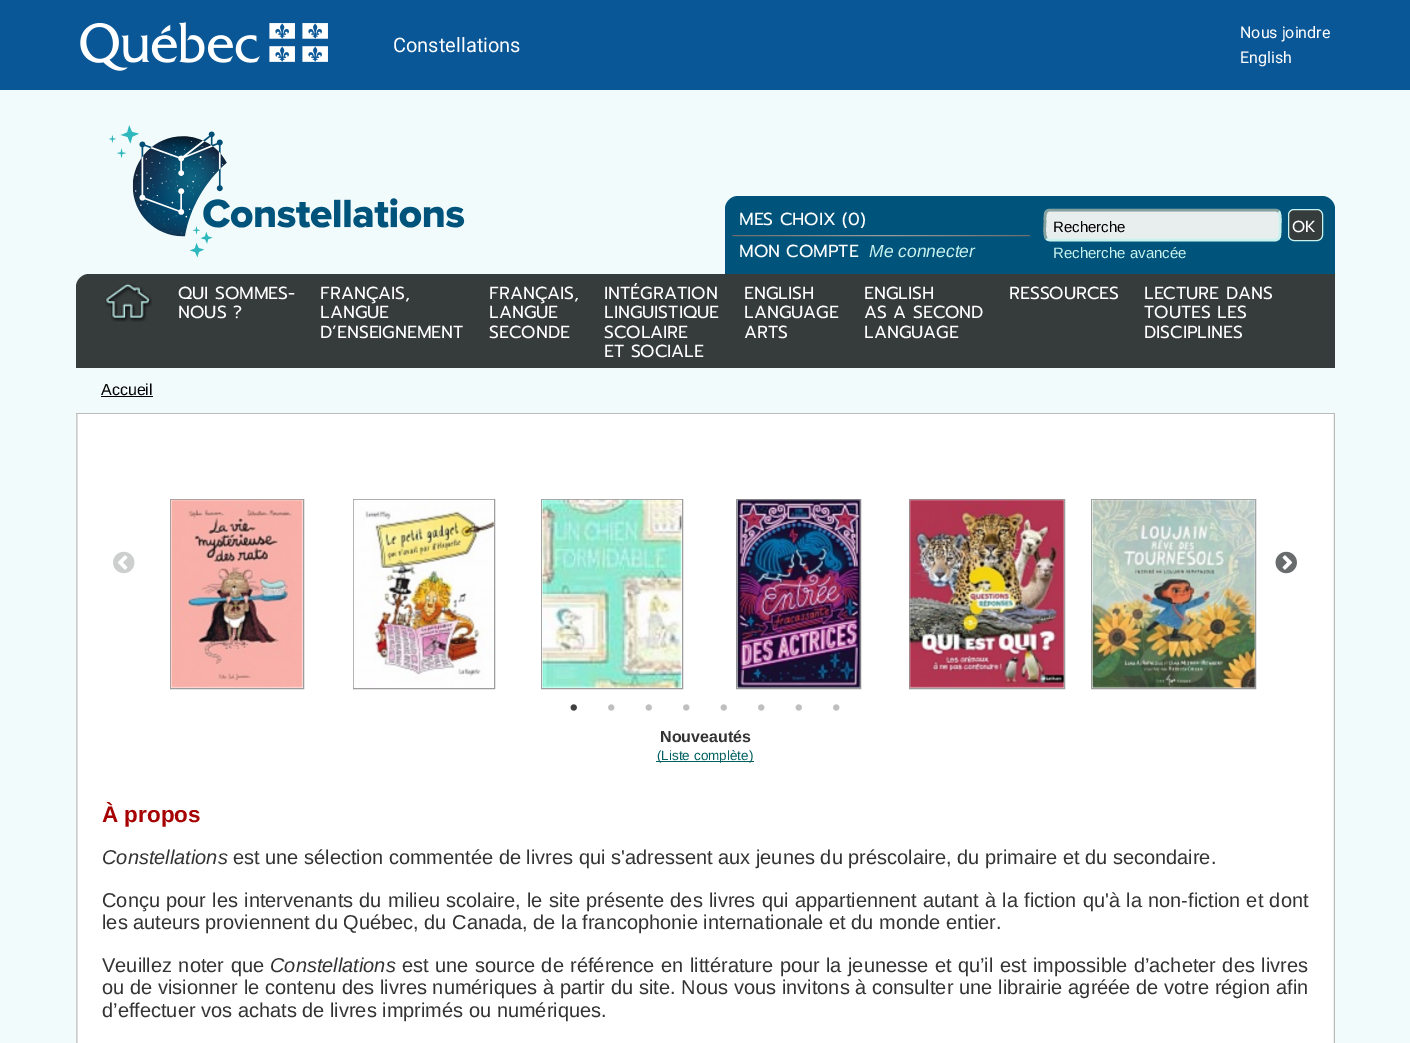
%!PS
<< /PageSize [1410 1043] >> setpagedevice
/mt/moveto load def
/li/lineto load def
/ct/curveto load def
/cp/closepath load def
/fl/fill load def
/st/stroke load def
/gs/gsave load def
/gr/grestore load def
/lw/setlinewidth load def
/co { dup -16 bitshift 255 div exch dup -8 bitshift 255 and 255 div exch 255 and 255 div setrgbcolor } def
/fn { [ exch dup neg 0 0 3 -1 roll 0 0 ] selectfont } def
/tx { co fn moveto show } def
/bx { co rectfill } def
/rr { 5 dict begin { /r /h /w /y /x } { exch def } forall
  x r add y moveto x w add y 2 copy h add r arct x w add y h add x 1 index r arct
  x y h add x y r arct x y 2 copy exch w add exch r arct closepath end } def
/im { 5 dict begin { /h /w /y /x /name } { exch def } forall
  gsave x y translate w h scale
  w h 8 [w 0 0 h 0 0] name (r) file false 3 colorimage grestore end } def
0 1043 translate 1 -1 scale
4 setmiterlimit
0 0 1410 1043 16#F2FBFB bx
0 0 1410 90 16#095797 bx
(media/1.raw) 80 22 248 49 im
(media/2.raw) 109 125 356 133 im
16#00547B co
738 196 mt 1322 196 li 1329 196 1335 202 1335 209 ct 1335 274 li 725 274 li 725 209 li 725 202 731 196 738 196 ct cp fl
(media/3.raw) 732 235 298 2 im
16#E8EEEE co
1044 209 237 32 6 rr fl
16#C7F2EE co
2.5 lw
1278.5 211.5 mt 1281.5 214.5 1280 224.5 1280 228.5 ct 1280 232.5 1281 240 1275 240 ct 1050 240 li 1048.5 240 1047.5 239.5 1046.5 238.5 ct st
16#85A19F co
1046.5 238.5 mt 1043.5 235.5 1045 225.5 1045 221.5 ct 1045 217.5 1044 210 1050 210 ct 1275 210 li 1276.5 210 1277.5 210.5 1278.5 211.5 ct st
16#363B3B co
1288.5 209.5 34 31 5.5 rr gs fl gr
16#C7F2EE co
1 lw
st
16#363B3B co
89 274 mt 1335 274 li 1335 368 li 76 368 li 76 287 li 76 280 82 274 89 274 ct cp fl
(media/4.raw) 105 283 47 39 im
76 413 1259 1 16#BBBBBB bx
101 396 52 1 16#000000 bx
gs 76 414 mt 1334 414 li 1334 1043 li 76 1043 li cp clip newpath
<< /ShadingType 2 /ColorSpace /DeviceRGB /Coords [706 414 706 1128] /Extend [true true] /Function << /FunctionType 3 /Domain [0 1] /Functions [<< /FunctionType 2 /Domain [0 1] /C0 [1 1 1] /C1 [1 1 1] /N 1 >> << /FunctionType 2 /Domain [0 1] /C0 [1 1 1] /C1 [.949 .984 1] /N 1 >>] /Bounds [.98] /Encode [0 1 0 1] >> >> shfill gr
(media/5.raw) 76 414 1259 629 im
(media/6.raw) 113 551 22 23 im
16#9D9D9D co
170.5 499.5 133 189 rectstroke
(media/7.raw) 170 499 133 189 im
353.5 499.5 141 189 rectstroke
(media/8.raw) 353 499 141 189 im
541.5 499.5 141 189 rectstroke
(media/9.raw) 541 499 141 189 im
736.5 499.5 124 189 rectstroke
(media/10.raw) 736 499 125 189 im
909.5 499.5 155 189 rectstroke
(media/11.raw) 909 499 155 189 im
1091.5 499.5 164 189 rectstroke
(media/12.raw) 1091 499 165 189 im
(media/13.raw) 1275 551 22 23 im
(media/14.raw) 570 704 7 7 im
(media/15.raw) 608 704 7 7 im
(media/16.raw) 645 704 7 7 im
(media/15.raw) 683 704 7 7 im
(media/16.raw) 720 704 7 7 im
(media/15.raw) 758 704 7 7 im
(media/16.raw) 795 704 7 7 im
(media/15.raw) 833 704 7 7 im
656 761 98 1 16#006060 bx
(Constellations) 393 52 /Roboto-Regular 20 16#FFFFFF tx
(Nous joindre) 1240 38 /Roboto-Regular 16 16#FFFFFF tx
(English) 1240 63 /Roboto-Regular 16 16#FFFFFF tx
(MES CHOIX \(0\)) 739 225 /Prompt-Regular 17.5 16#FFFFFF tx
(MON COMPTE) 739 257 /Prompt-Regular 17.5 16#FFFFFF tx
(Me connecter) 869 257 /LiberationSans-Italic 17.5 16#C7F2EE tx
(Recherche) 1053 232 /LiberationSans-Regular 15 16#000000 tx
(OK) 1292 232 /Prompt-Regular 16 16#FFFFFF tx
(Recherche avancée) 1053 258 /LiberationSans-Regular 15 16#C7F2EE tx
(QUI SOMMES-) 178 299 /Prompt-Regular 17.5 16#FFFFFF tx
(NOUS ?) 178 318 /Prompt-Regular 17.5 16#FFFFFF tx
(FRANÇAIS,) 320 299 /Prompt-Regular 17.5 16#FFFFFF tx
(LANGUE) 320 318 /Prompt-Regular 17.5 16#FFFFFF tx
(D’ENSEIGNEMENT) 320 338 /Prompt-Regular 17.5 16#FFFFFF tx
(FRANÇAIS,) 489 299 /Prompt-Regular 17.5 16#FFFFFF tx
(LANGUE) 489 318 /Prompt-Regular 17.5 16#FFFFFF tx
(SECONDE) 489 338 /Prompt-Regular 17.5 16#FFFFFF tx
(INTÉGRATION) 604 299 /Prompt-Regular 17.5 16#FFFFFF tx
(LINGUISTIQUE) 604 318 /Prompt-Regular 17.5 16#FFFFFF tx
(SCOLAIRE) 604 338 /Prompt-Regular 17.5 16#FFFFFF tx
(ET SOCIALE) 604 357 /Prompt-Regular 17.5 16#FFFFFF tx
(ENGLISH) 744 299 /Prompt-Regular 17.5 16#FFFFFF tx
(LANGUAGE) 744 318 /Prompt-Regular 17.5 16#FFFFFF tx
(ARTS) 744 338 /Prompt-Regular 17.5 16#FFFFFF tx
(ENGLISH) 864 299 /Prompt-Regular 17.5 16#FFFFFF tx
(AS A SECOND) 864 318 /Prompt-Regular 17.5 16#FFFFFF tx
(LANGUAGE) 864 338 /Prompt-Regular 17.5 16#FFFFFF tx
(RESSOURCES) 1009 299 /Prompt-Regular 17.5 16#FFFFFF tx
(LECTURE DANS) 1144 299 /Prompt-Regular 17.5 16#FFFFFF tx
(TOUTES LES) 1144 318 /Prompt-Regular 17.5 16#FFFFFF tx
(DISCIPLINES) 1144 338 /Prompt-Regular 17.5 16#FFFFFF tx
(Accueil) 101 395 /LiberationSans-Regular 16 16#000000 tx
(Nouveautés) 660 742 /LiberationSans-Bold 16 16#333333 tx
(\(Liste complète\)) 657 760 /LiberationSans-Regular 13.5 16#006060 tx
(À propos) 102 822 /LiberationSans-Bold 22.5 16#A70202 tx
(Constellations) 102 864 /LiberationSans-Italic 20 16#333333 tx
(est une sélection commentée de livres qui s'adressent aux jeunes du préscolaire, du primaire et du secondaire.) 233 864 /LiberationSans-Regular 20 16#333333 tx
102 907 mt .7 0 32 (Conçu pour les intervenants du milieu scolaire, le site présente des livres qui appartiennent autant à la fiction qu'à la non-fiction et dont) widthshow
(les auteurs proviennent du Québec, du Canada, de la francophonie internationale et du monde entier.) 102 929 /LiberationSans-Regular 20 16#333333 tx
102 972 mt .9 0 32 (Veuillez noter que) widthshow
(Constellations) 270 972 /LiberationSans-Italic 20 16#333333 tx
/LiberationSans-Regular 20 fn
402 972 mt .9 0 32 (est une source de référence en littérature pour la jeunesse et qu’il est impossible d’acheter des livres) widthshow
102 994 mt .2 0 32 (ou de visionner le contenu des livres numériques à partir du site. Nous vous invitons à consulter une librairie agréée de votre région afin) widthshow
(d’effectuer vos achats de livres imprimés ou numériques.) 102 1017 /LiberationSans-Regular 20 16#333333 tx
showpage
